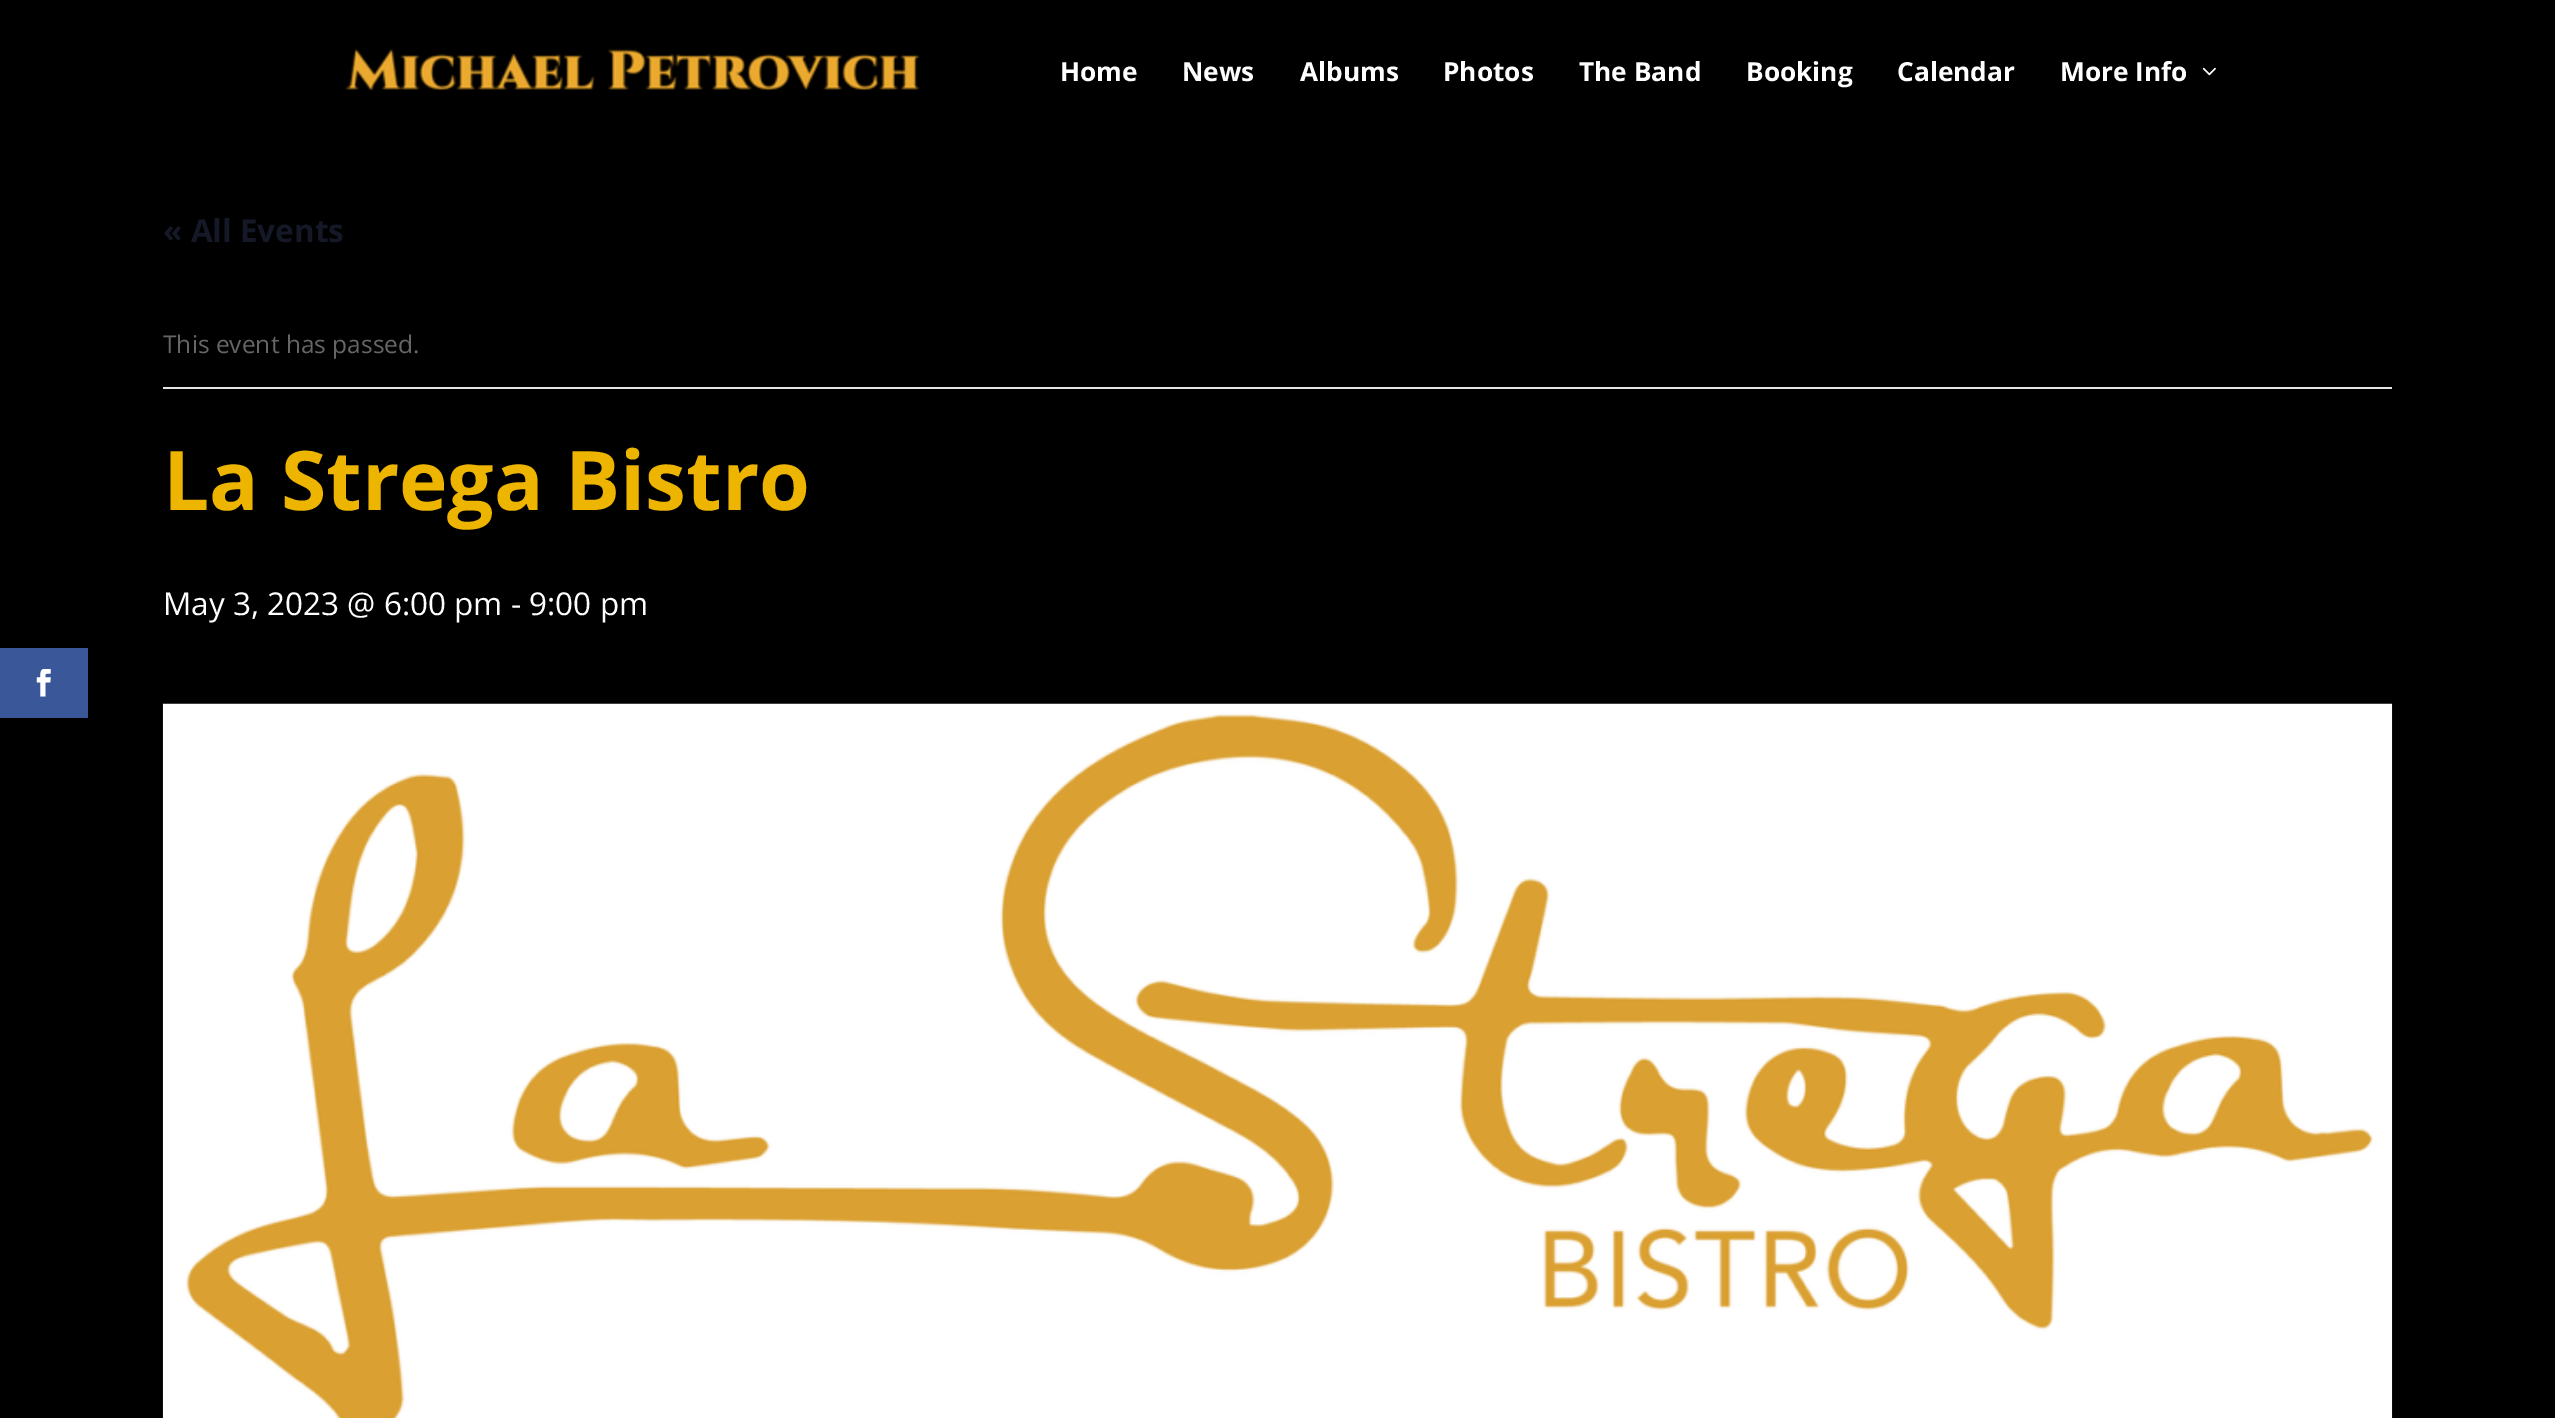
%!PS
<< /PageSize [2555 1418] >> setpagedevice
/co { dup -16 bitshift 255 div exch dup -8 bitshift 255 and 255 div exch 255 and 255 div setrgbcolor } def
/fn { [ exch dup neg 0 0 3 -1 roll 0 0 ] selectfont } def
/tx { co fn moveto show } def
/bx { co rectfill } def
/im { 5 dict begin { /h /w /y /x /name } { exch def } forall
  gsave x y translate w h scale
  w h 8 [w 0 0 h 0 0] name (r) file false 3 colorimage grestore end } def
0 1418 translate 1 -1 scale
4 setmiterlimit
0 0 2555 1418 16#000000 bx
(media/1.raw) 345 48 575 43 im
(media/2.raw) 2202 67 14 9 im
163 387 2229 2 16#E4E4E4 bx
(media/3.raw) 162 703 2231 715 im
0 648 88 70 16#3A579A bx
(media/4.raw) 36 669 15 28 im
(Home) 1060 81 /OpenSans-Bold 26.25 16#FFFFFF tx
(News) 1182 81 /OpenSans-Bold 26.25 16#FFFFFF tx
(Albums) 1300 81 /OpenSans-Bold 26.25 16#FFFFFF tx
(Photos) 1443 81 /OpenSans-Bold 26.25 16#FFFFFF tx
(The Band) 1579 81 /OpenSans-Bold 26.25 16#FFFFFF tx
(Booking) 1746 81 /OpenSans-Bold 26.25 16#FFFFFF tx
(Calendar) 1897 81 /OpenSans-Bold 26.25 16#FFFFFF tx
(More Info) 2060 81 /OpenSans-Bold 26.25 16#FFFFFF tx
(« All Events) 163 242 /OpenSans-Bold 31.5 16#141827 tx
(This event has passed.) 163 353 /OpenSans-Regular 24.5 16#666666 tx
(La Strega Bistro) 163 510 /OpenSans-Bold 82.25 16#EDB500 tx
(May 3, 2023 @ 6:00 pm - 9:00 pm) 163 615 /OpenSans-Regular 31.5 16#FFFFFF tx
showpage
